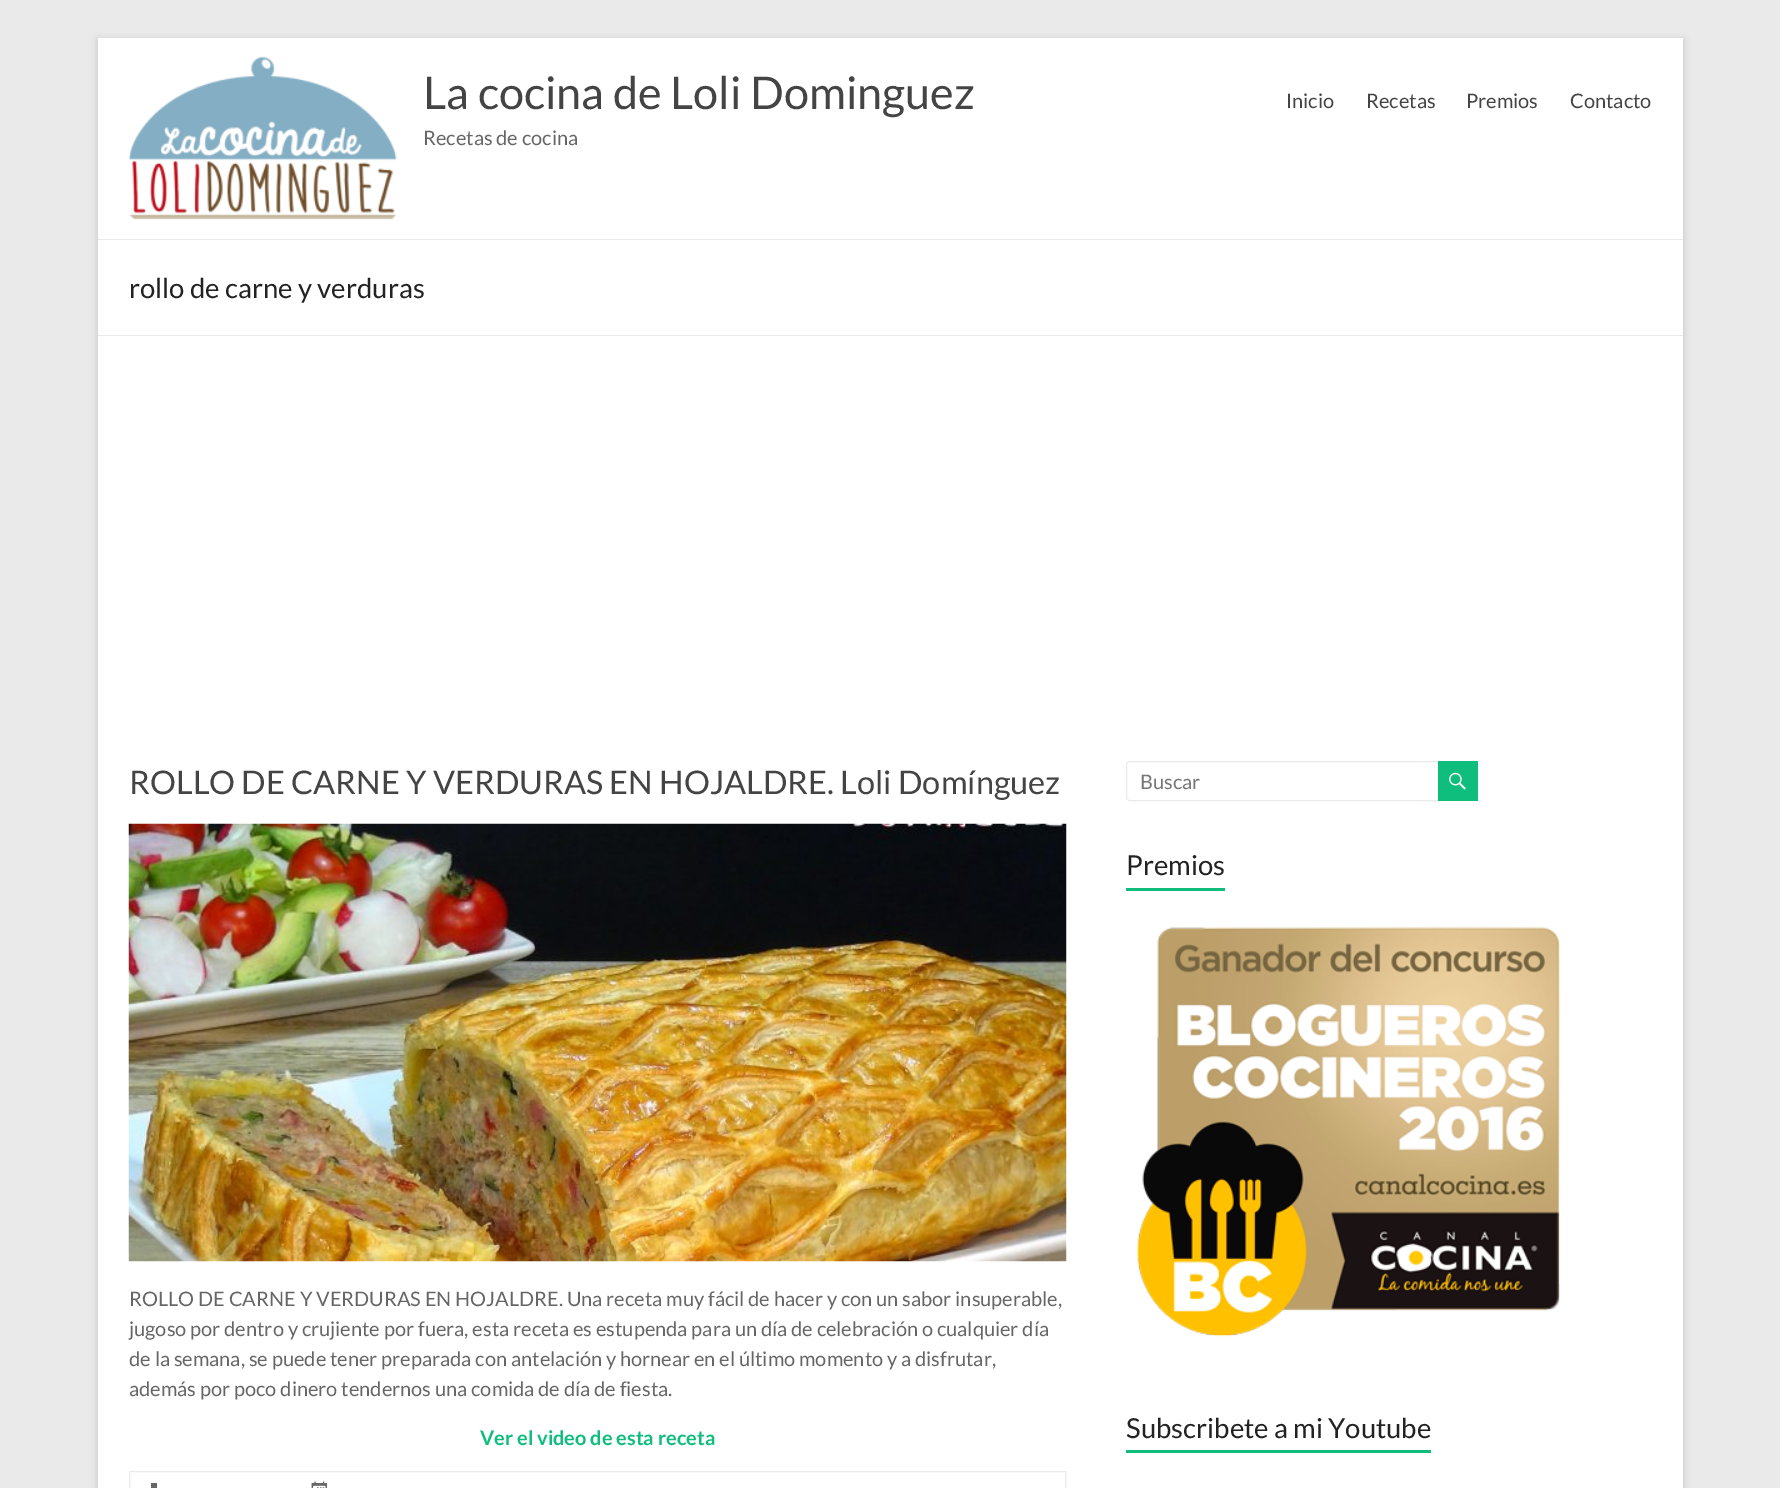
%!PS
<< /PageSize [1780 1488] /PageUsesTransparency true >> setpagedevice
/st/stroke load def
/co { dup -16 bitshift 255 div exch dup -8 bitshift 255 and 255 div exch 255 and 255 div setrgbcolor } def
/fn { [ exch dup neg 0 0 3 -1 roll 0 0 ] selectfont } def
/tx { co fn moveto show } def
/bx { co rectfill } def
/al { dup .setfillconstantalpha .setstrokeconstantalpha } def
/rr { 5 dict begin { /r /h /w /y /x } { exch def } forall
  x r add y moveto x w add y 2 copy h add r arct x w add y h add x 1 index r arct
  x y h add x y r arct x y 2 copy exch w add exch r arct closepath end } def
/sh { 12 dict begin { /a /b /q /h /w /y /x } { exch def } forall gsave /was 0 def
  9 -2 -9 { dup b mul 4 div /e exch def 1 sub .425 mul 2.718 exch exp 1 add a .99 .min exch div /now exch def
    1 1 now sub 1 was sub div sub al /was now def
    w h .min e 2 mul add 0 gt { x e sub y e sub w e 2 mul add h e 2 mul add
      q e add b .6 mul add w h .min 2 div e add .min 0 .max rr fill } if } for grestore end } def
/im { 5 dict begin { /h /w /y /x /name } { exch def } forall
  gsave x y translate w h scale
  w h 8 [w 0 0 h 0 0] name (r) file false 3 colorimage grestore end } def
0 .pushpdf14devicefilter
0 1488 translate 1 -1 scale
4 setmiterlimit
0 0 1780 1488 16#EAEAEA bx
16#646464 co
98 40 1585 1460 0 4 .3 sh
98 38 1585 1450 16#FFFFFF bx
98 239 1585 1 16#EAEAEA bx
(media/1.raw) 128 56 269 164 im
98 335 1585 1 16#EAEAEA bx
(media/2.raw) 128 823 939 439 im
129.5 1471.5 936 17 rectstroke
151 1483 6 5 16#666666 bx
(media/3.raw) 311 1481 17 7 im
16#EAEAEA co
1126.5 761.5 314 39 3.5 rr st
1438 761 40 40 16#0FBE7C bx
(media/4.raw) 1449 772 17 18 im
1126 888 99 3 16#0FBE7C bx
(media/5.raw) 1137 926 424 411 im
1126 1450 305 3 16#0FBE7C bx
(La cocina de Loli Dominguez) 423 109 /Lato-Regular 45 16#444444 tx
(Recetas de cocina) 423 145 /Lato-Regular 20 16#666666 tx
(Inicio) 1286 108 /Lato-Regular 20 16#444444 tx
(Recetas) 1366 108 /Lato-Regular 20 16#444444 tx
(Premios) 1466 108 /Lato-Regular 20 16#444444 tx
(Contacto) 1570 108 /Lato-Regular 20 16#444444 tx
(rollo de carne y verduras) 129 298 /Lato-Regular 27.5 16#222222 tx
(ROLLO DE CARNE Y VERDURAS EN HOJALDRE. Loli Domínguez) 129 794 /Lato-Regular 32.5 16#444444 tx
(ROLLO DE CARNE Y VERDURAS EN HOJALDRE. Una receta muy fácil de hacer y con un sabor insuperable,) 129 1306 /Lato-Regular 20 16#666666 tx
(jugoso por dentro y crujiente por fuera, esta receta es estupenda para un día de celebración o cualquier día) 129 1336 /Lato-Regular 20 16#666666 tx
(de la semana, se puede tener preparada con antelación y hornear en el último momento y a disfrutar,) 129 1366 /Lato-Regular 20 16#666666 tx
(además por poco dinero tendernos una comida de día de fiesta.) 129 1396 /Lato-Regular 20 16#666666 tx
(Ver el video de esta receta) 480 1445 /Lato-Bold 20 16#0FBE7C tx
(Buscar) 1140 789 /Lato-Regular 20 16#757575 tx
(Premios) 1126 875 /Lato-Regular 27.5 16#222222 tx
(Subscribete a mi Youtube) 1126 1438 /Lato-Regular 27.5 16#222222 tx
.poppdf14devicefilter showpage
